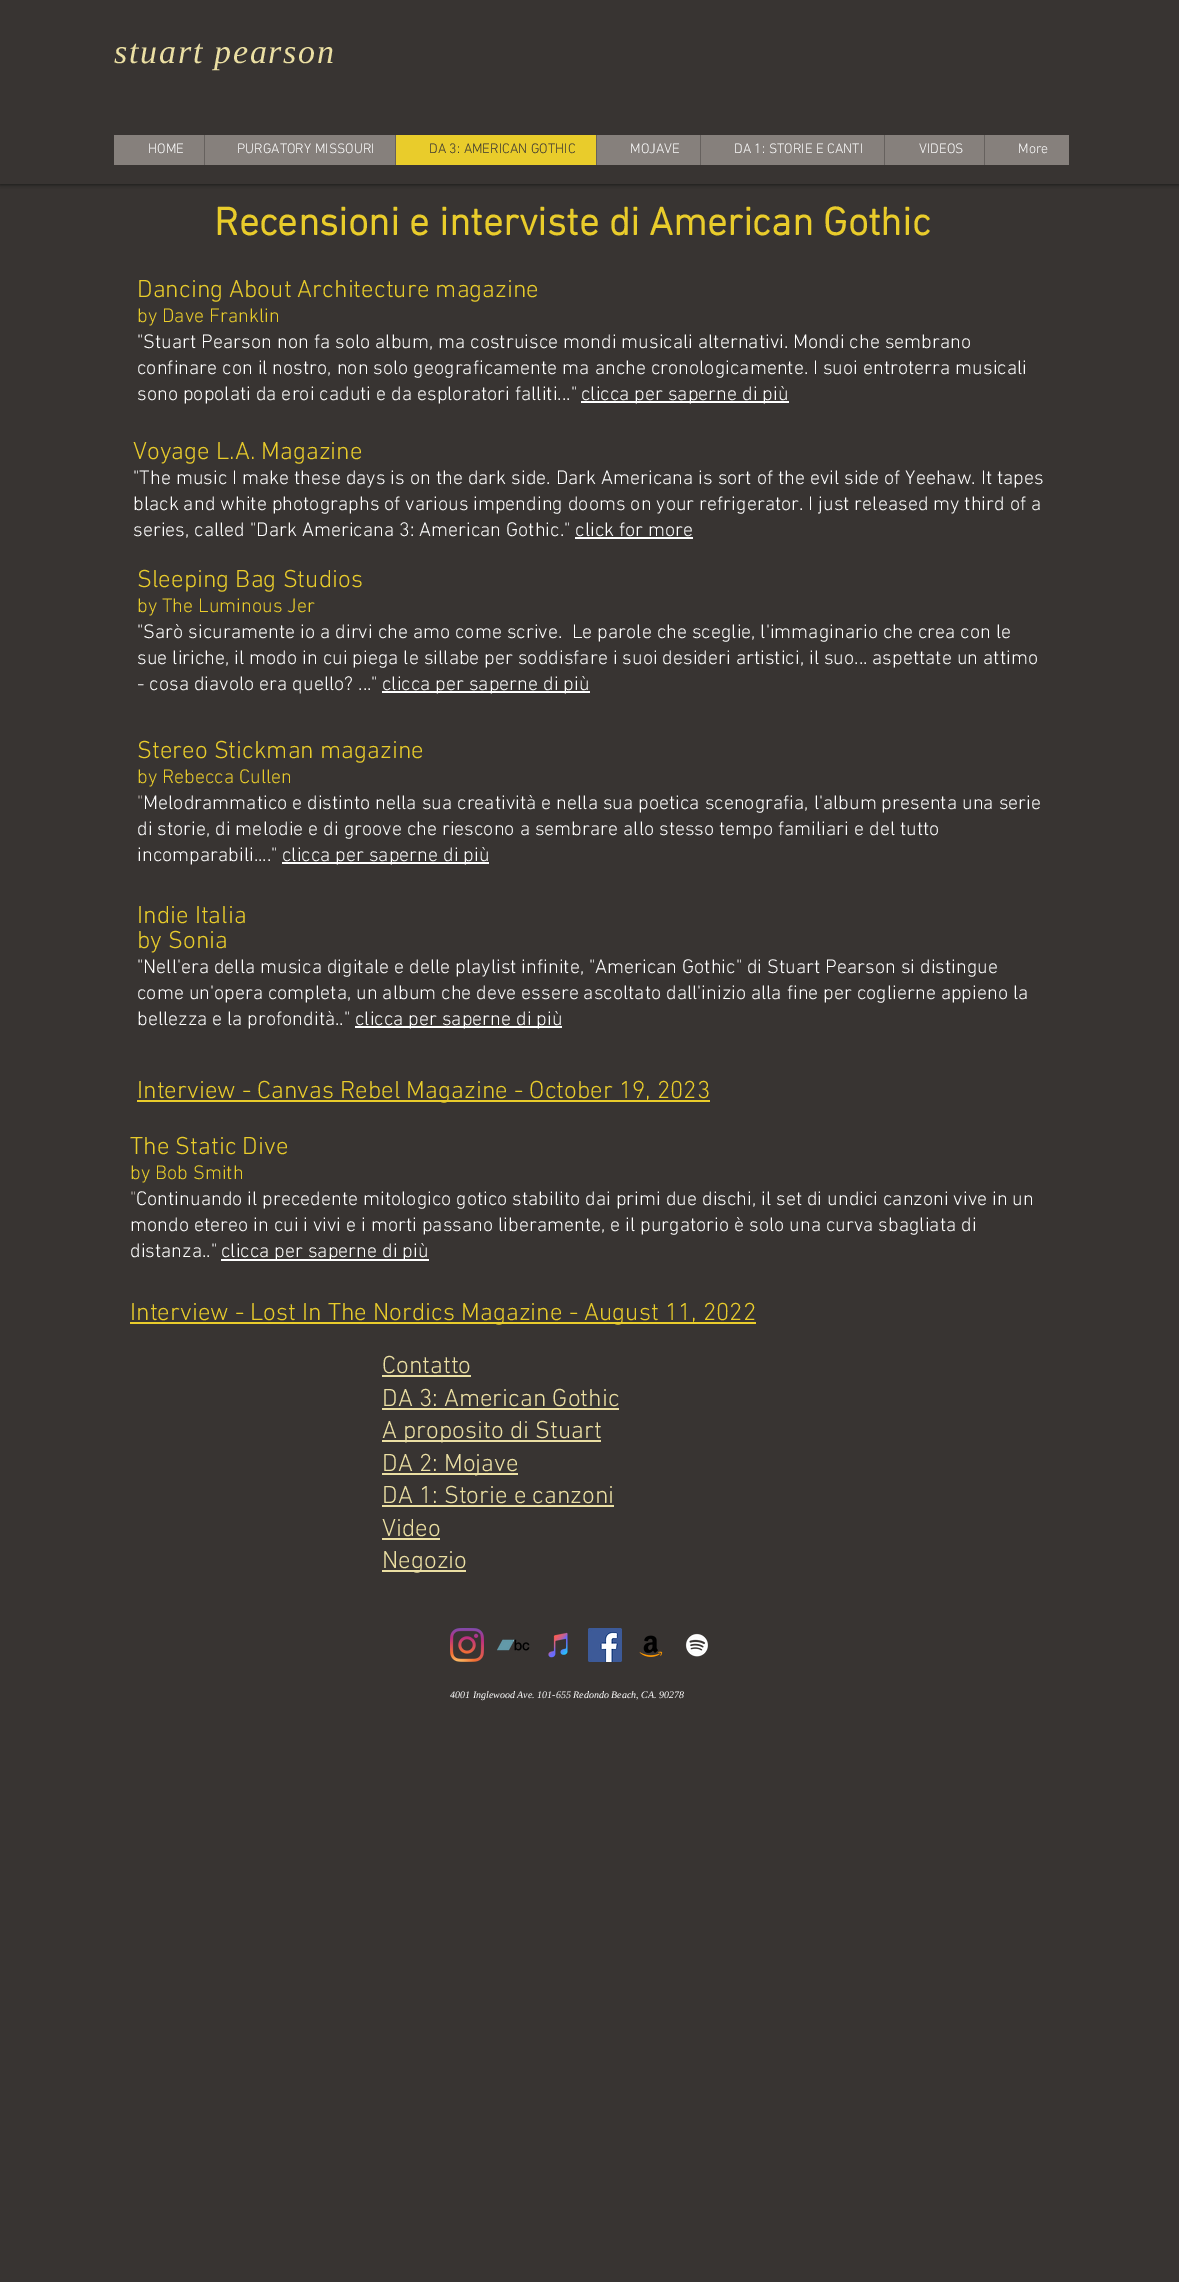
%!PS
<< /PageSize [1179 2282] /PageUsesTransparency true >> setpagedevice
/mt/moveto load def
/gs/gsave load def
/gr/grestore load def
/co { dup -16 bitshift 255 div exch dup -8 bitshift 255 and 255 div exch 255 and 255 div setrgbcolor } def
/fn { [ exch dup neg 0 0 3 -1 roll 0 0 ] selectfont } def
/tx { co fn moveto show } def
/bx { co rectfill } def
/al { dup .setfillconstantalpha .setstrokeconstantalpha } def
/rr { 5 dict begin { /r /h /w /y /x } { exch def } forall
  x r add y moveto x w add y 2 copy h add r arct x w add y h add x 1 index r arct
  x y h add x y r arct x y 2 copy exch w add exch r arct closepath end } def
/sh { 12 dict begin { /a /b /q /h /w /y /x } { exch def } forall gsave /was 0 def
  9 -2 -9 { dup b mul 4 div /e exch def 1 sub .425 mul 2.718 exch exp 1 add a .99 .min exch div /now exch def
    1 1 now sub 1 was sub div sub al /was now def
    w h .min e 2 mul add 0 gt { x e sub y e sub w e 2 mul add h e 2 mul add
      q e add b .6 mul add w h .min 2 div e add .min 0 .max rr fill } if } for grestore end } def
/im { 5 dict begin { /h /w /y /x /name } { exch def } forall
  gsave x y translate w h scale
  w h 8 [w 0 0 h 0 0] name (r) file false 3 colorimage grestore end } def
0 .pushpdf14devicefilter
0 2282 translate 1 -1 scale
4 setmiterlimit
0 0 1179 2282 16#383432 bx
gs
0 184 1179 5 rectclip
16#000000 co
0 0 1179 184 0 2.5 .7 sh
gr
114 135 955 30 16#86807C bx
204 135 1 30 16#66615E bx
396 135 200 30 16#E9CC2B bx
395 135 1 30 16#66615E bx
596 135 1 30 16#66615E bx
700 135 1 30 16#66615E bx
884 135 1 30 16#66615E bx
984 135 1 30 16#66615E bx
581 401 208 2 16#FFFFFF bx
575 537 118 2 16#FFFFFF bx
382 691 208 2 16#FFFFFF bx
282 862 207 2 16#FFFFFF bx
355 1026 207 2 16#FFFFFF bx
137 1100 573 2 16#E9CC2B bx
221 1259 208 2 16#FFFFFF bx
130 1322 626 2 16#E9CC2B bx
382 1375 89 2 16#EBDFA3 bx
382 1408 237 2 16#EBDFA3 bx
382 1440 219 2 16#EBDFA3 bx
382 1473 136 2 16#EBDFA3 bx
382 1505 232 2 16#EBDFA3 bx
382 1538 58 2 16#EBDFA3 bx
382 1570 84 2 16#EBDFA3 bx
(media/1.raw) 450 1628 34 34 im
(media/2.raw) 497 1639 33 12 im
(media/3.raw) 548 1632 20 26 im
(media/4.raw) 588 1628 34 34 im
(media/5.raw) 639 1635 24 22 im
(media/6.raw) 685 1633 23 24 im
/LiberationSerif-Italic 34 fn
114 63 mt 1.75 0 (stuart pearson) ashow
(HOME) 148 153 /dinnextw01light-Light 14 16#FFFFFF tx
(PURGATORY MISSOURI) 237 153 /dinnextw01light-Light 14 16#FFFFFF tx
(DA 3: AMERICAN GOTHIC) 429 153 /dinnextw01light-Light 14 16#383432 tx
(MOJAVE) 630 153 /dinnextw01light-Light 14 16#FFFFFF tx
(DA 1: STORIE E CANTI) 734 153 /dinnextw01light-Light 14 16#FFFFFF tx
(VIDEOS) 919 153 /dinnextw01light-Light 14 16#FFFFFF tx
(More) 1018 153 /dinnextw01light-Light 14 16#FFFFFF tx
(Recensioni e interviste di American Gothic) 214 235 /dinnextw01light-Bold 40 16#E9CC2B tx
(Dancing About Architecture magazine) 137 297 /dinnextw01light-Light 25 16#E9CC2B tx
(by Dave Franklin) 137 322 /dinnextw01light-Light 20 16#E9CC2B tx
("Stuart Pearson non fa solo album, ma costruisce mondi musicali alternativi. Mondi che sembrano) 137 348 /dinnextw01light-Light 20 16#FFFFFF tx
(confinare con il nostro, non solo geograficamente ma anche cronologicamente. I suoi entroterra musicali) 137 374 /dinnextw01light-Light 20 16#FFFFFF tx
(sono popolati da eroi caduti e da esploratori falliti...") 137 400 /dinnextw01light-Light 20 16#FFFFFF tx
(clicca per saperne di più) 581 400 /dinnextw01light-Light 20 16#FFFFFF tx
(Voyage L.A. Magazine) 133 459 /dinnextw01light-Light 25 16#E9CC2B tx
("The music I make these days is on the dark side. Dark Americana is sort of the evil side of Yeehaw. It tapes) 133 484 /dinnextw01light-Light 20 16#FFFFFF tx
(black and white photographs of various impending dooms on your refrigerator. I just released my third of a) 133 510 /dinnextw01light-Light 20 16#FFFFFF tx
(series, called "Dark Americana 3: American Gothic." click for more) 133 536 /dinnextw01light-Light 20 16#FFFFFF tx
(Sleeping Bag Studios) 137 587 /dinnextw01light-Light 25 16#E9CC2B tx
(by The Luminous Jer) 137 612 /dinnextw01light-Light 20 16#E9CC2B tx
("Sarò sicuramente io a dirvi che amo come scrive.  Le parole che sceglie, l'immaginario che crea con le) 137 638 /dinnextw01light-Light 20 16#FFFFFF tx
(sue liriche, il modo in cui piega le sillabe per soddisfare i suoi desideri artistici, il suo... aspettate un attimo) 137 664 /dinnextw01light-Light 20 16#FFFFFF tx
(- cosa diavolo era quello? ...") 137 690 /dinnextw01light-Light 20 16#FFFFFF tx
(clicca per saperne di più) 382 690 /dinnextw01light-Light 20 16#FFFFFF tx
(Stereo Stickman magazine) 137 758 /dinnextw01light-Light 25 16#E9CC2B tx
(by Rebecca Cullen) 137 783 /dinnextw01light-Light 20 16#E9CC2B tx
(") 137 809 /dinnextw01light-Light 20 16#BEB6B0 tx
(Melodrammatico e distinto nella sua creatività e nella sua poetica scenografia, l'album presenta una serie) 143 809 /dinnextw01light-Light 20 16#FFFFFF tx
(di storie, di melodie e di groove che riescono a sembrare allo stesso tempo familiari e del tutto) 137 835 /dinnextw01light-Light 20 16#FFFFFF tx
(incomparabili....") 137 861 /dinnextw01light-Light 20 16#FFFFFF tx
(clicca per saperne di più) 282 861 /dinnextw01light-Light 20 16#FFFFFF tx
(Indie Italia) 137 923 /dinnextw01light-Light 25 16#E9CC2B tx
(by Sonia) 137 948 /dinnextw01light-Light 25 16#E9CC2B tx
("Nell'era della musica digitale e delle playlist infinite, "American Gothic" di Stuart Pearson si distingue) 137 973 /dinnextw01light-Light 20 16#FFFFFF tx
(come un'opera completa, un album che deve essere ascoltato dall'inizio alla fine per coglierne appieno la) 137 999 /dinnextw01light-Light 20 16#FFFFFF tx
(bellezza e la profondità..") 137 1025 /dinnextw01light-Light 20 16#FFFFFF tx
(clicca per saperne di più) 355 1025 /dinnextw01light-Light 20 16#FFFFFF tx
(Interview - Canvas Rebel Magazine - October 19, 2023) 137 1098 /dinnextw01light-Light 25 16#E9CC2B tx
(The Static Dive) 130 1154 /dinnextw01light-Light 25 16#E9CC2B tx
(by Bob Smith) 130 1179 /dinnextw01light-Light 20 16#E9CC2B tx
(") 130 1205 /dinnextw01light-Light 20 16#BEB6B0 tx
(Continuando il precedente mitologico gotico stabilito dai primi due dischi, il set di undici canzoni vive in un) 136 1205 /dinnextw01light-Light 20 16#FFFFFF tx
(mondo etereo in cui i vivi e i morti passano liberamente, e il purgatorio è solo una curva sbagliata di) 130 1231 /dinnextw01light-Light 20 16#FFFFFF tx
(distanza..") 130 1257 /dinnextw01light-Light 20 16#FFFFFF tx
(clicca per saperne di più) 221 1257 /dinnextw01light-Light 20 16#FFFFFF tx
(Interview - Lost In The Nordics Magazine - August 11, 2022) 130 1320 /dinnextw01light-Light 25 16#E9CC2B tx
(Contatto) 382 1373 /dinnextw01light-Light 25 16#EBDFA3 tx
(DA 3: American Gothic) 382 1406 /dinnextw01light-Light 25 16#EBDFA3 tx
(A proposito di Stuart) 382 1438 /dinnextw01light-Light 25 16#EBDFA3 tx
(DA 2: Mojave) 382 1471 /dinnextw01light-Light 25 16#EBDFA3 tx
(DA 1: Storie e canzoni) 382 1503 /dinnextw01light-Light 25 16#EBDFA3 tx
(Video) 382 1536 /dinnextw01light-Light 25 16#EBDFA3 tx
(Negozio) 382 1568 /dinnextw01light-Light 25 16#EBDFA3 tx
(4001 Inglewood Ave. 101-655 Redondo Beach, CA. 90278) 450 1698 /LiberationSerif-Italic 10 16#FFFFFF tx
.poppdf14devicefilter showpage
